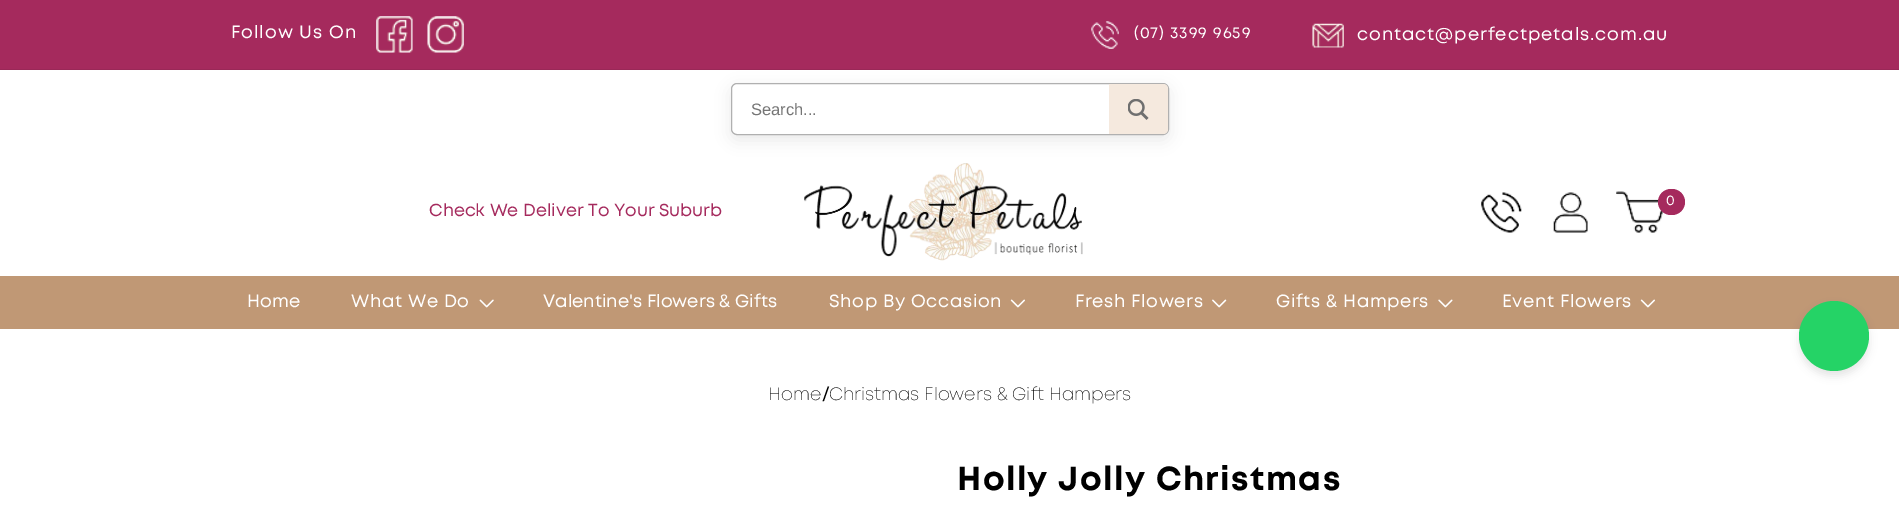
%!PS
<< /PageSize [1899 514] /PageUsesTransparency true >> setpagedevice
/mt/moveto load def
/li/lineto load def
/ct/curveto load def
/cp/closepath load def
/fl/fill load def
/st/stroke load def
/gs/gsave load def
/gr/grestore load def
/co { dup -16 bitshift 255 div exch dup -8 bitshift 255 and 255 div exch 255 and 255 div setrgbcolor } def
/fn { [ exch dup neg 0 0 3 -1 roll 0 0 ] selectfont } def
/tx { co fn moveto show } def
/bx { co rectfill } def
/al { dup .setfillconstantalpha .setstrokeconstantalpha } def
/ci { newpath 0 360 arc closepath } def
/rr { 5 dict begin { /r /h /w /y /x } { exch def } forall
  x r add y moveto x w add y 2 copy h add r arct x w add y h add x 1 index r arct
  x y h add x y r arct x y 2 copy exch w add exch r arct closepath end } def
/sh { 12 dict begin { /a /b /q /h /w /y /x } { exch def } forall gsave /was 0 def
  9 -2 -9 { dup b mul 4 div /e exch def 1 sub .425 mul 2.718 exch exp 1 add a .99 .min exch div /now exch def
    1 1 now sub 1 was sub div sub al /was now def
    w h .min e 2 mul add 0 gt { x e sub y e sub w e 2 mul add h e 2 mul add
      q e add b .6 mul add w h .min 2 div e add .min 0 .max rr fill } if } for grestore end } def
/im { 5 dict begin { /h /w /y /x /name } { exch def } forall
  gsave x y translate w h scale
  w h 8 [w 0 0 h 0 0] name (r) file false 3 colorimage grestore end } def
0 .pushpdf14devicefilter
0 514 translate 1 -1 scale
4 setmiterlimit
0 0 1899 514 16#FFFFFF bx
(media/6.raw) 804 163 279 98 im
16#000000 co
731 88 438 52 6 7.5 .08 sh
0 0 1899 69 16#A52A5D bx
0 69 1899 1 16#992857 bx
(media/1.raw) 376 16 37 37 im
(media/2.raw) 427 16 37 37 im
(media/3.raw) 1091 21 28 28 im
(media/4.raw) 1312 23 32 25 im
16#FFFFFF co
731.5 83.5 437 51 5.5 rr gs fl gr
16#B0B0B0 co
st
16#F5E9DE co
1109 84 mt 1163 84 li 1166 84 1168 86 1168 89 ct 1168 129 li 1168 132 1166 134 1163 134 ct 1109 134 li cp fl
(media/5.raw) 1128 99 21 21 im
(media/7.raw) 1481 192 41 41 im
(media/8.raw) 1553 192 35 41 im
(media/9.raw) 1616 191 48 42 im
16#A52A5D co
1658 189 27 26 13 rr fl
0 276 1899 53 16#C09875 bx
(media/10.raw) 479 299 15 9 im
(media/11.raw) 1010 299 15 9 im
(media/12.raw) 1212 299 15 9 im
(media/13.raw) 1438 299 15 9 im
(media/11.raw) 1640 299 15 9 im
16#000000 co
1799 306 70 70 35 4 .1 sh
16#25D366 co
1834 336 35 ci fl
/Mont-Regular 17.8 fn
16#FFFFFF co
231 38 mt .95 0 (Follow Us On) ashow
/Mont-Regular 15.75 fn
1134 38 mt .95 0 (\(07\) 3399 9659) ashow
/Mont-Regular 17.8 fn
1357 40 mt .95 0 (contact@perfectpetals.com.au) ashow
(Search...) 751 115 /LiberationSans-Regular 16.5 16#757575 tx
/Mont-Regular 14 fn
16#FFFFFF co
1666 205 mt .95 0 (0) ashow
(Check We Deliver To Your Suburb) 429 216 /Mont-Regular 17.4 16#A52A5D tx
(Home) 247 307 /Mont-Regular 17.8 16#FFFFFF tx
351 307 mt .6 0 (What We Do) ashow
(Valentine's Flowers & Gifts) 543 307 /Mont-Regular 17.8 16#FFFFFF tx
829 307 mt .6 0 (Shop By Occasion) ashow
1075 307 mt .6 0 (Fresh Flowers) ashow
1276 307 mt .6 0 (Gifts & Hampers) ashow
1502 307 mt .6 0 (Event Flowers) ashow
(Home) 768 400 /Mont-ExtraLight 17.8 16#000000 tx
(/) 822 400 /Mont-Regular 17.8 16#000000 tx
(Christmas Flowers & Gift Hampers) 829 400 /Mont-ExtraLight 17.8 16#000000 tx
/Mont-Bold 33.25 fn
957 490 mt 1.4 0 (Holly Jolly Christmas) ashow
.poppdf14devicefilter showpage
